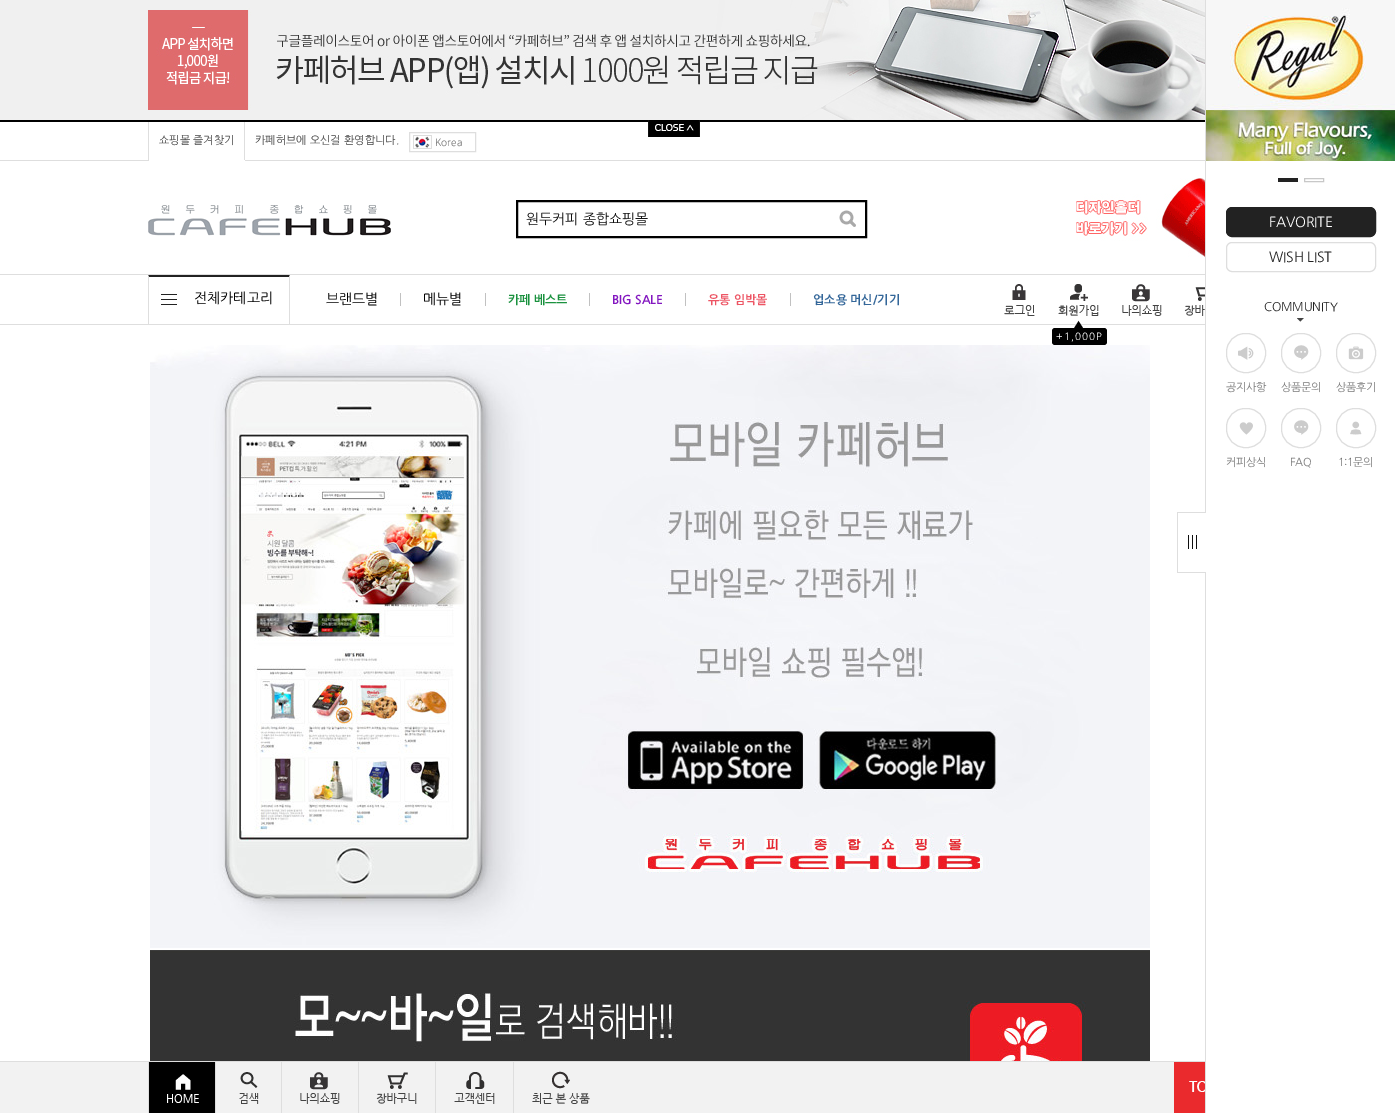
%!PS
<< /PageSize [1395 1113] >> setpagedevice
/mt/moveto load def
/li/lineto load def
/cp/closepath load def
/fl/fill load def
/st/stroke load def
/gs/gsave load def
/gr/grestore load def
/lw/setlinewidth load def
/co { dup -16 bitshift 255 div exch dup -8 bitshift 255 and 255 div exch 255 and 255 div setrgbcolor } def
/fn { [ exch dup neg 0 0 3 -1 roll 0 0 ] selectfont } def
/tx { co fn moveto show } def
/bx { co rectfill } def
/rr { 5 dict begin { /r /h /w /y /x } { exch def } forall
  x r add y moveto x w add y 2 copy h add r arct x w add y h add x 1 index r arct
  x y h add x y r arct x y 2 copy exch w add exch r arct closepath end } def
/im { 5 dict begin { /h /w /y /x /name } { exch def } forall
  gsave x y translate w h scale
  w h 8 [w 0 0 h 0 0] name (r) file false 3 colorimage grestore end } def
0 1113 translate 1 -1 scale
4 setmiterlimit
0 0 1395 1113 16#FFFFFF bx
0 0 148 120 16#F0F0F0 bx
(media/1.raw) 148 0 1057 120 im
0 120 1205 2 16#000000 bx
(media/2.raw) 648 120 52 17 im
0 160 1205 1 16#DEDEDE bx
244 122 1 39 16#DEDEDE bx
148 160 97 1 16#FFFFFF bx
148 122 1 39 16#DEDEDE bx
409.5 132.5 66 19 rectstroke
(media/3.raw) 413 135 19 14 im
(media/4.raw) 148 205 243 31 im
16#000000 co
2 lw
517 201 349 36 rectstroke
(media/5.raw) 839 210 17 17 im
(media/6.raw) 1076 178 129 80 im
0 274 1205 1 16#DEDEDE bx
0 324 1205 1 16#DEDEDE bx
16#222222 co
148 275 mt 290 275 li 289 277 li 149 277 li cp fl
16#DEDEDE co
290 275 mt 290 324 li 289 324 li 289 277 li cp fl
148 324 mt 148 275 li 149 277 li 149 324 li cp fl
161 294 16 1 16#222222 bx
161 299 16 1 16#222222 bx
161 304 16 1 16#222222 bx
400 293 1 13 16#C1C1C1 bx
485 293 1 13 16#C1C1C1 bx
589 293 1 13 16#C1C1C1 bx
685 293 1 13 16#C1C1C1 bx
790 293 1 13 16#C1C1C1 bx
(media/7.raw) 1004 284 31 32 im
(media/8.raw) 1122 284 40 32 im
(media/9.raw) 1184 284 21 32 im
(media/10.raw) 1058 284 41 32 im
16#000000 co
1052 328 55 17 3 rr fl
(media/11.raw) 150 345 1000 716 im
1205 0 1 1113 16#DEDEDE bx
(media/12.raw) 1206 0 189 161 im
1278 178 20 4 16#222222 bx
16#C8C8C8 co
1 lw
1304.5 178.5 19 3 rectstroke
16#222222 co
1226.5 207.5 149 29 5.5 rr gs fl gr
st
16#DEDEDE co
1226.5 242.5 149 29 5.5 rr st
(media/13.raw) 1297 318 7 4 im
1226.5 333.5 39 39 18.5 rr st
(media/14.raw) 1238 346 16 14 im
1281.5 333.5 39 39 18.5 rr st
(media/15.raw) 1294 345 15 15 im
1336.5 333.5 39 39 18.5 rr st
(media/16.raw) 1348 346 16 14 im
1226.5 408.5 39 39 18.5 rr st
(media/17.raw) 1239 422 14 13 im
1281.5 408.5 39 39 18.5 rr st
(media/15.raw) 1294 420 15 15 im
1336.5 408.5 39 39 18.5 rr st
(media/18.raw) 1350 421 12 14 im
1205 513 1 59 16#FFFFFF bx
(media/19.raw) 1188 535 9 14 im
1177 512 29 1 16#DEDEDE bx
1177 572 29 1 16#DEDEDE bx
1177 512 1 61 16#DEDEDE bx
0 1062 1174 51 16#F2F2F2 bx
0 1061 1205 1 16#DEDEDE bx
(media/20.raw) 148 1062 68 51 im
(media/21.raw) 239 1062 43 51 im
(media/22.raw) 300 1062 59 51 im
(media/23.raw) 376 1062 60 51 im
(media/24.raw) 454 1062 60 51 im
(media/25.raw) 532 1071 58 33 im
(media/26.raw) 1174 1062 31 51 im
(쇼핑몰 즐겨찾기) 159 144 /NanumGothic-Regular 11 16#444444 tx
(카페허브에 오신걸 환영합니다.) 255 144 /NanumGothic-Regular 11 16#444444 tx
(Korea) 435 146 /NanumGothic-Regular 10 16#777777 tx
(원두커피 종합쇼핑몰) 526 224 /NanumGothic-Regular 14 16#111111 tx
(전체카테고리) 194 303 /NanumGothic-Regular 14 16#000000 tx
(브랜드별) 326 304 /NanumGothic-Regular 14 16#000000 tx
(메뉴별) 423 304 /NanumGothic-Regular 14 16#000000 tx
(카페 베스트) 508 304 /NanumGothic-Bold 12 16#1B923F tx
(BIG SALE) 612 304 /NanumGothic-Bold 12 16#8316C0 tx
(유통 임박몰) 708 304 /NanumGothic-Bold 12 16#ED5564 tx
(업소용 머신/기기) 813 304 /NanumGothic-Bold 12 16#336699 tx
(▲) 1072 330 /NanumGothic-Regular 14 16#000000 tx
/NanumGothic-Regular 10 fn
16#FFFFFF co
1056 340 mt 1 0 (+1,000P) ashow
/NanumGothic-Regular 14 fn
1269 227 mt -.25 0 (FAVORITE) ashow
16#222222 co
1269 262 mt -.25 0 (WISH LIST) ashow
/NanumGothic-Regular 12 fn
1264 311 mt -.25 0 (COMMUNITY) ashow
/NanumGothic-Regular 11 fn
16#777777 co
1226 391 mt -.5 0 (공지사항) ashow
1281 391 mt -.5 0 (상품문의) ashow
1336 391 mt -.5 0 (상품후기) ashow
1226 466 mt -.5 0 (커피상식) ashow
1290 466 mt -.5 0 (FAQ) ashow
1338 466 mt -.5 0 (1:1문의) ashow
showpage
